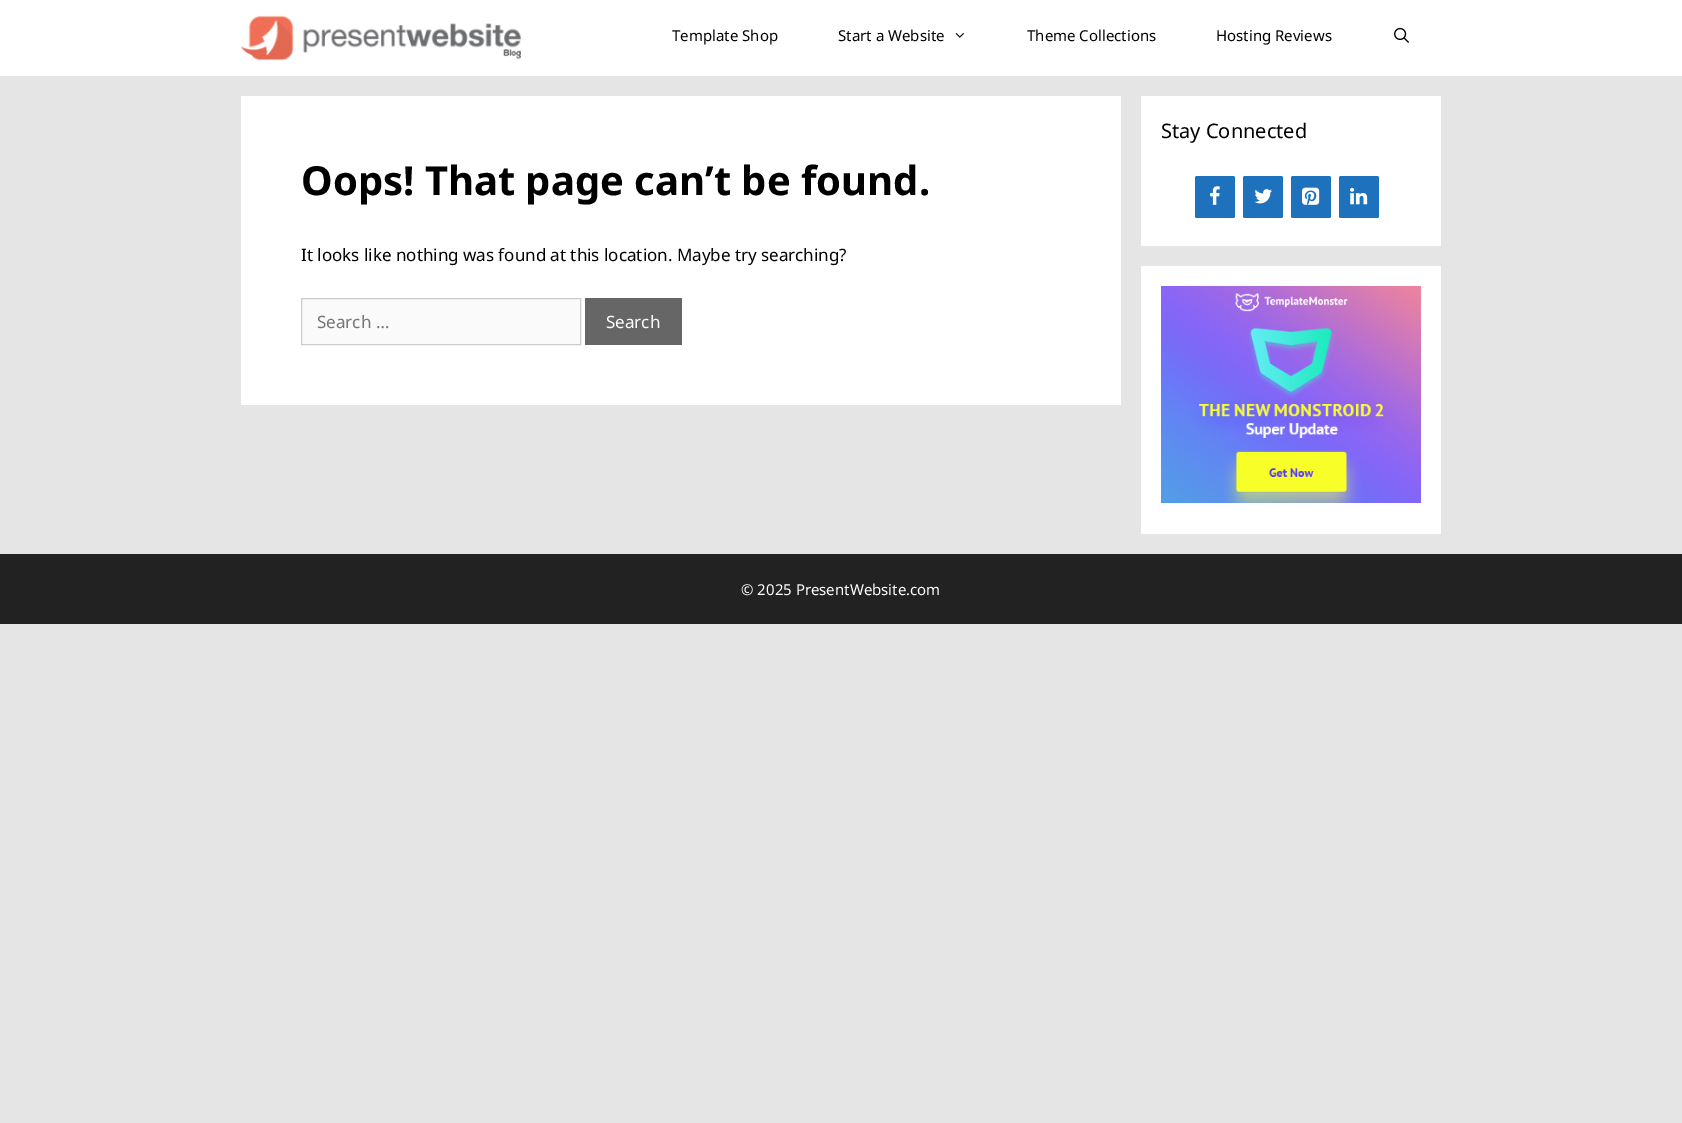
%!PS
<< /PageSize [1682 1123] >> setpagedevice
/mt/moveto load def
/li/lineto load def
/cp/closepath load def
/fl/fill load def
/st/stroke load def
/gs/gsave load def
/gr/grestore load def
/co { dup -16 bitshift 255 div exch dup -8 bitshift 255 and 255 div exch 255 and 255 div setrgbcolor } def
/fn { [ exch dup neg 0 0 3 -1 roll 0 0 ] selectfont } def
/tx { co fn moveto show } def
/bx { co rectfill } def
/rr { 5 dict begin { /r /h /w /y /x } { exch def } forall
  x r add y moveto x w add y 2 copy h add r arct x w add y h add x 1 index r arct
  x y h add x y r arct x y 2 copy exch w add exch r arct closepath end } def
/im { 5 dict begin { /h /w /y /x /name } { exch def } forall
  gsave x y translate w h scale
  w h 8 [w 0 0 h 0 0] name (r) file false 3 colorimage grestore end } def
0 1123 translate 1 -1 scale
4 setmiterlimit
0 0 1682 1123 16#E5E5E5 bx
0 0 1682 76 16#FFFFFF bx
(media/1.raw) 241 15 280 46 im
(media/2.raw) 955 33 9 5 im
(media/3.raw) 1394 27 15 16 im
1141 96 300 150 16#FFFFFF bx
16#1E72BD co
1195 176 40 42 2 rr fl
(media/4.raw) 1210 186 10 19 im
1243 176 40 42 2 rr fl
(media/5.raw) 1254 189 18 15 im
1291 176 40 42 2 rr fl
(media/6.raw) 1302 187 18 18 im
1339 176 40 42 2 rr fl
(media/7.raw) 1350 187 18 18 im
1141 266 300 268 16#FFFFFF bx
(media/8.raw) 1161 286 260 217 im
241 96 880 309 16#FFFFFF bx
16#FAFAFA co
301.5 298.5 mt 580.5 298.5 li 580.5 344.5 li 301.5 344.5 li cp gs fl gr
16#CCCCCC co
st
585 298 97 47 16#666666 bx
0 554 1682 70 16#222222 bx
(Template Shop) 672 41 /NotoSans-Regular 15 16#000000 tx
(Start a Website) 838 41 /NotoSans-Regular 15 16#000000 tx
(Theme Collections) 1027 41 /NotoSans-Regular 15 16#000000 tx
(Hosting Reviews) 1216 41 /NotoSans-Regular 15 16#000000 tx
(Stay Connected) 1161 138 /NotoSans-Regular 20 16#000000 tx
(Oops! That page can’t be found.) 301 195 /NotoSans-Bold 40 16#000000 tx
(It looks like nothing was found at this location. Maybe try searching?) 301 261 /NotoSans-Regular 17 16#000000 tx
(Search …) 317 328 /NotoSans-Regular 17 16#757575 tx
(Search) 606 328 /NotoSans-Regular 17 16#FFFFFF tx
(© 2025 PresentWebsite.com) 741 595 /NotoSans-Regular 15 16#FFFFFF tx
showpage
